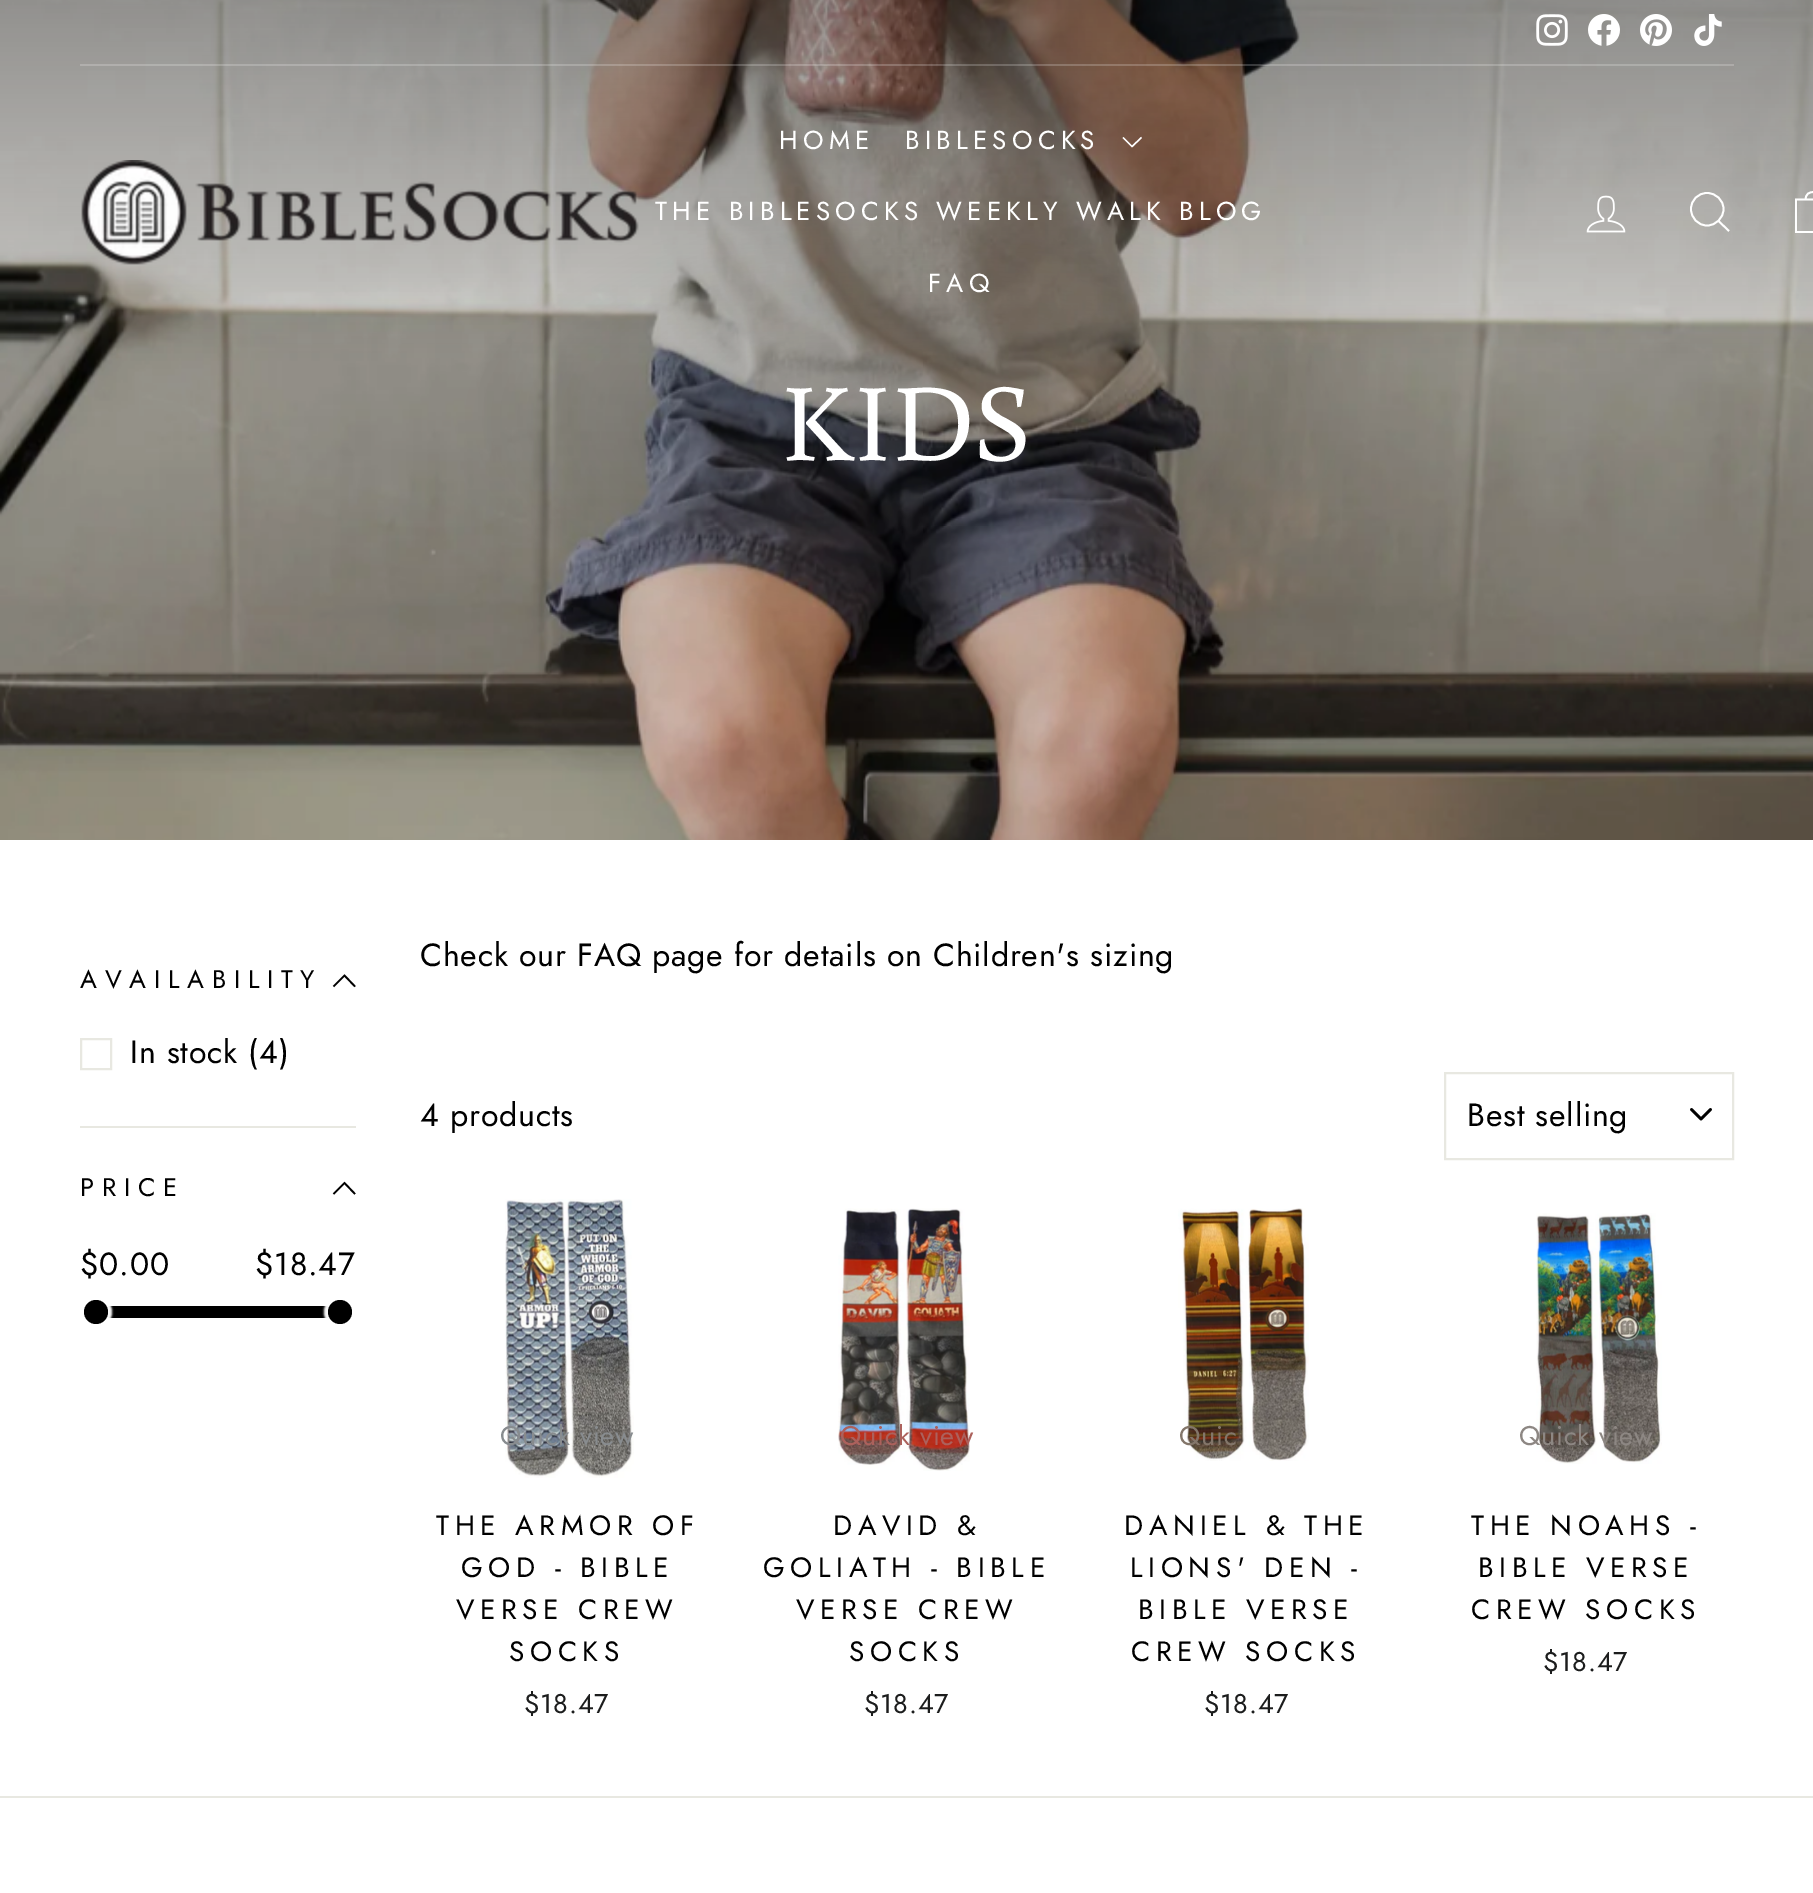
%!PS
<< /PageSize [1813 1893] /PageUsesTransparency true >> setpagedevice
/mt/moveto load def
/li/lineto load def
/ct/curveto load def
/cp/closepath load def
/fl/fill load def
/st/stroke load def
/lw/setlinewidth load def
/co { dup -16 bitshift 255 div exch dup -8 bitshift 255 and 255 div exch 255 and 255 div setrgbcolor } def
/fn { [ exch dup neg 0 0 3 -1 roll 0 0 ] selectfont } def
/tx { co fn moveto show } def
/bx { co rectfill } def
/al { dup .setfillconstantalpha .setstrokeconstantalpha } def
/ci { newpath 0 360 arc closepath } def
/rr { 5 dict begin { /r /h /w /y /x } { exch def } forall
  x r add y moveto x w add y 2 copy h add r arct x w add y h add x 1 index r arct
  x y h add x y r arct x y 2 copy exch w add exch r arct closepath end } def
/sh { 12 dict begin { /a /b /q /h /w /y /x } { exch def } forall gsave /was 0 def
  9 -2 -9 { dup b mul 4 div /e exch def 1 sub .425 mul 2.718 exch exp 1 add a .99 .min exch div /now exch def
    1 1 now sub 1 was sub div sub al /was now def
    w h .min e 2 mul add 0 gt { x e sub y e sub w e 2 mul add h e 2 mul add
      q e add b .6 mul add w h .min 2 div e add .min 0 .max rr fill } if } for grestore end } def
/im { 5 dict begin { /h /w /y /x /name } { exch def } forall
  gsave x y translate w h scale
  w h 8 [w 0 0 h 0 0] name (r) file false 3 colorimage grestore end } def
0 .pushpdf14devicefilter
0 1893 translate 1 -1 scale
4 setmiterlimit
0 0 1813 1893 16#FFFFFF bx
(media/7.raw) 0 0 1813 840 im
0.2 al
80 64 1654 2 16#FFFFFF bx
1 al
(media/1.raw) 1536 14 32 32 im
(media/2.raw) 1588 14 32 32 im
(media/3.raw) 1640 14 32 32 im
(media/4.raw) 1694 14 28 32 im
(media/5.raw) 81 160 558 105 im
1.4 lw
1123 137.5 mt 1132 146.5 li 1141.5 137.5 li st
(media/6.raw) 1586 195 40 38 im
1.8 lw
1723.5 209 mt 1723.5 218 1716 225.5 1707 225.5 ct 1698 225.5 1691 218 1691 209 ct 1691 200 1698 193 1707 193 ct 1716 193 1723.5 200 1723.5 209 ct cp 1729 231 mt 1718.5 221 li st
1796 199.5 mt 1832 199.5 li 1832 232 li 1796 232 li cp 1805.5 200 mt 1805.5 193.5 1809.5 192 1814 192 ct 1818.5 192 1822.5 193.5 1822.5 200 ct st
16#000000 co
1.7 lw
333.5 986.5 mt 344.5 975.5 li 355 986.5 li st
16#E8E8E1 co
2 lw
81 1039 30 30 rectstroke
80 1126 276 2 16#E8E8E1 bx
16#000000 co
1.7 lw
333.5 1194 mt 344.5 1183 li 355 1194 li st
106 1306 224 12 16#000000 bx
16#FFFFFF co
80 1296 32 32 16 1 1 sh
16#000000 co
96 1312 12 ci fl
16#FFFFFF co
324 1296 32 32 16 1 1 sh
16#000000 co
340 1312 12 ci fl
(media/8.raw) 1690 1108 22 13 im
16#E8E8E1 co
2 lw
1445 1073 288 86 rectstroke
(media/9.raw) 505 1199 129 279 im
(media/10.raw) 838 1208 132 263 im
(media/11.raw) 1178 1208 131 253 im
(media/12.raw) 1536 1213 126 251 im
0 1796 1813 2 16#E8E8E1 bx
/Jost-Regular 26 fn
16#FFFFFF co
779 149 mt 5.2 0 (HOME) ashow
905 149 mt 5.2 0 (BIBLESOCKS) ashow
655 220 mt 5.2 0 (THE BIBLESOCKS WEEKLY WALK BLOG) ashow
928 292 mt 5.2 0 (FAQ) ashow
(KIDS) 781 460 /Buenard-Regular 110 16#FFFFFF tx
/Jost-Regular 25.5 fn
16#000000 co
80 988 mt 7.75 0 (AVAILABILITY) ashow
/Jost-Regular 32 fn
130 1063 mt .8 0 (In stock \(4\)) ashow
/Jost-Regular 25.5 fn
80 1196 mt 7.75 0 (PRICE) ashow
/Jost-Regular 32 fn
80 1275 mt .8 0 ($0.00) ashow
255 1275 mt .8 0 ($18.47) ashow
420 966 mt .8 0 (Check our FAQ page for details on Children's sizing) ashow
420 1126 mt .8 0 (4 products) ashow
1467 1126 mt .8 0 (Best selling) ashow
/Jost-Regular 27 fn
16#888C8F co
500 1445 mt .75 0 (Quick view) ashow
/Jost-Regular 28 fn
16#000000 co
436 1535 mt 5.6 0 (THE ARMOR OF) ashow
461 1577 mt 5.6 0 (GOD - BIBLE) ashow
456 1619 mt 5.6 0 (VERSE CREW) ashow
509 1661 mt 5.6 0 (SOCKS) ashow
/Jost-Regular 27 fn
16#1C1D1D co
524 1713 mt .8 0 ($18.47) ashow
16#AC615C co
840 1445 mt .75 0 (Quick view) ashow
/Jost-Regular 28 fn
16#000000 co
833 1535 mt 5.6 0 (DAVID &) ashow
763 1577 mt 5.6 0 (GOLIATH - BIBLE) ashow
796 1619 mt 5.6 0 (VERSE CREW) ashow
849 1661 mt 5.6 0 (SOCKS) ashow
/Jost-Regular 27 fn
16#1C1D1D co
864 1713 mt .8 0 ($18.47) ashow
16#83766A co
1179 1445 mt .75 0 (Quic) ashow
/Jost-Regular 28 fn
16#000000 co
1124 1535 mt 5.6 0 (DANIEL & THE) ashow
1130 1577 mt 5.6 0 (LIONS' DEN -) ashow
1138 1619 mt 5.6 0 (BIBLE VERSE) ashow
1131 1661 mt 5.6 0 (CREW SOCKS) ashow
/Jost-Regular 27 fn
16#1C1D1D co
1204 1713 mt .8 0 ($18.47) ashow
16#8D8783 co
1519 1445 mt .75 0 (Quick view) ashow
/Jost-Regular 28 fn
16#000000 co
1471 1535 mt 5.6 0 (THE NOAHS -) ashow
1478 1577 mt 5.6 0 (BIBLE VERSE) ashow
1471 1619 mt 5.6 0 (CREW SOCKS) ashow
/Jost-Regular 27 fn
16#1C1D1D co
1543 1671 mt .8 0 ($18.47) ashow
.poppdf14devicefilter showpage
